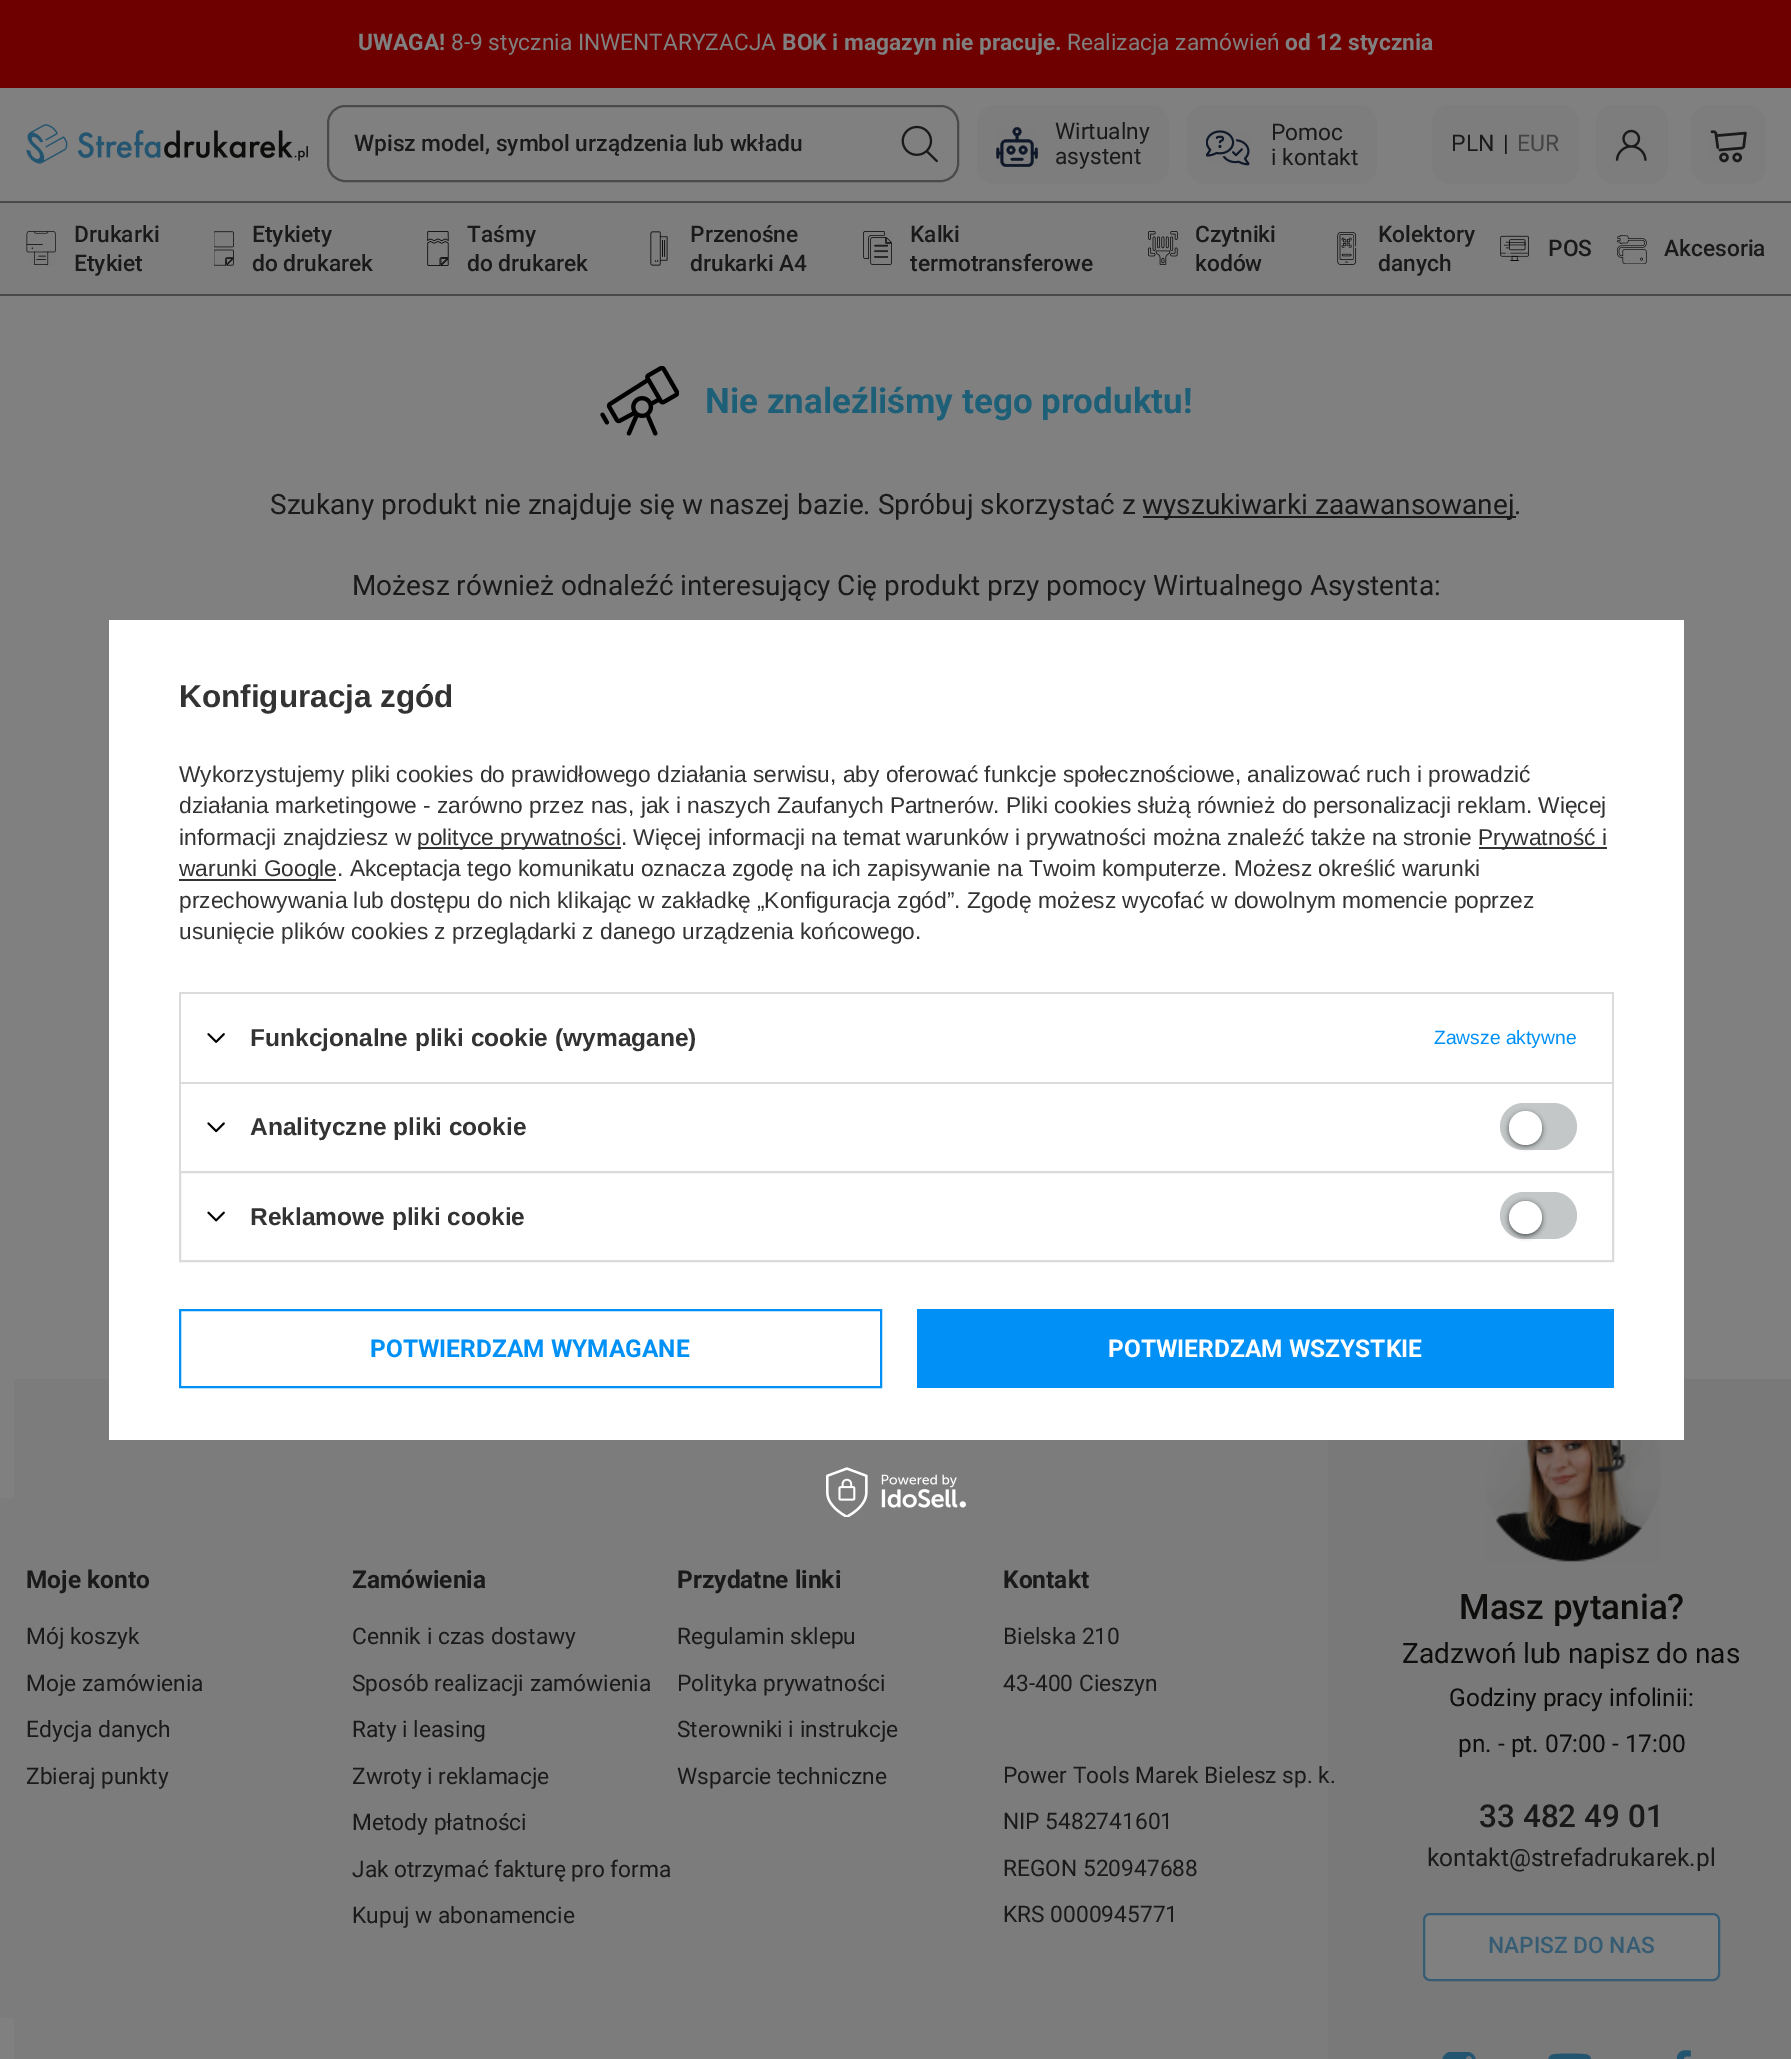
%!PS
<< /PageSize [1791 2059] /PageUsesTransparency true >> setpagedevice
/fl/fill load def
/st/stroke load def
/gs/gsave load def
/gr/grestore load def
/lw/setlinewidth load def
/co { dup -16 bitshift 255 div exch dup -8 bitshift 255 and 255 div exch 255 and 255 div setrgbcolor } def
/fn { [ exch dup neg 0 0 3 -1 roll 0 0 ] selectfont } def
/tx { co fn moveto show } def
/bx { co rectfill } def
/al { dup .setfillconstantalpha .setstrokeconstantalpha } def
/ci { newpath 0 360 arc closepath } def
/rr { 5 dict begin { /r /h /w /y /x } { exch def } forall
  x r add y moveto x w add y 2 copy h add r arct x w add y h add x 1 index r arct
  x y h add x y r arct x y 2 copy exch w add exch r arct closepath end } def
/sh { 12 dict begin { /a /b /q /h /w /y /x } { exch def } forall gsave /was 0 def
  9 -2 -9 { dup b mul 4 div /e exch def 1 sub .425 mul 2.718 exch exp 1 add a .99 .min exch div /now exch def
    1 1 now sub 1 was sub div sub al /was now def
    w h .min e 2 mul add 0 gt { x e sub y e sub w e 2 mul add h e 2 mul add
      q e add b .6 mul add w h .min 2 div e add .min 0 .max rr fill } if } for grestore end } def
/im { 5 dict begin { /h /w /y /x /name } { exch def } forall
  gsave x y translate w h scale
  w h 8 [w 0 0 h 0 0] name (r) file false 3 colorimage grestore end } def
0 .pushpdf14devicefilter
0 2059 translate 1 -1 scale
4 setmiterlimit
0 0 1791 2059 16#808080 bx
0 0 1791 88 16#6E0000 bx
(media/1.raw) 26 124 282 40 im
16#4A4A4A co
2 lw
328 106 630 75 17 rr st
(media/2.raw) 901 125 37 38 im
16#7D7D7D co
977 105 192 79 18 rr fl
(media/3.raw) 996 127 42 40 im
1187 105 190 79 18 rr fl
(media/4.raw) 1206 130 44 36 im
1432 105 147 79 18 rr fl
1596 105 72 79 18 rr fl
(media/5.raw) 1615 129 32 32 im
1691 105 75 79 18 rr fl
(media/6.raw) 1710 130 37 33 im
0 203 1791 91 16#7D7D7D bx
0 201 1791 2 16#4A4A4A bx
0 294 1791 2 16#4A4A4A bx
(media/7.raw) 26 231 30 34 im
(media/8.raw) 214 231 20 35 im
(media/9.raw) 427 231 22 35 im
(media/10.raw) 650 231 18 35 im
(media/11.raw) 863 231 29 34 im
(media/12.raw) 1148 231 30 34 im
(media/13.raw) 1337 232 20 33 im
(media/14.raw) 1500 235 29 26 im
(media/15.raw) 1617 235 30 29 im
(media/16.raw) 600 366 79 70 im
1143 516 373 2 16#1A1A1A bx
14 1379 1314 680 16#7C7C7C bx
1328 1379 463 680 16#797979 bx
109 620 1575 820 16#FFFFFF bx
418 847 203 2 16#333333 bx
1479 847 128 2 16#333333 bx
179 879 157 2 16#333333 bx
179 992 1435 2 16#DBDBDB bx
1612 992 2 90 16#DBDBDB bx
179 992 2 90 16#DBDBDB bx
(media/17.raw) 207 1033 18 10 im
179 1082 1435 2 16#DBDBDB bx
1612 1082 2 89 16#DBDBDB bx
179 1082 2 89 16#DBDBDB bx
(media/18.raw) 207 1122 18 11 im
16#C4C7C8 co
1500 1103 77 47 23.5 rr fl
16#000000 co
1509 1113 33 33 16.5 2.5 .56 sh
16#FFFFFF co
1509 1111 33 34 16.5 rr fl
16#DBDBDB co
180 1172 1433 89 rectstroke
(media/19.raw) 207 1211 18 11 im
16#C4C7C8 co
1500 1192 77 47 23.5 rr fl
16#000000 co
1509 1202 33 34 16.5 2.5 .56 sh
16#FFFFFF co
1525.5 1217.5 16.5 ci fl
16#0090F6 co
180 1310 701 77 rectstroke
917 1309 697 79 16#0090F6 bx
(media/20.raw) 826 1467 140 50 im
0 1498 14 520 16#7C7C7C bx
(media/21.raw) 1486 1440 175 122 im
16#808080 co
1424 1914 295 66 6 rr gs fl gr
16#365C73 co
st
(media/22.raw) 1442 2052 34 7 im
(media/23.raw) 1548 2053 44 6 im
(media/24.raw) 1676 2050 15 9 im
(UWAGA!) 358 50 /Roboto-Bold 22.75 16#808080 tx
(8-9 stycznia INWENTARYZACJA) 451 50 /Roboto-Regular 22.75 16#808080 tx
(BOK i magazyn nie pracuje.) 782 50 /Roboto-Bold 22.75 16#808080 tx
(Realizacja zamówień) 1067 50 /Roboto-Regular 22.75 16#808080 tx
(od 12 stycznia) 1285 50 /Roboto-Bold 22.75 16#808080 tx
(Wpisz model, symbol urządzenia lub wkładu) 354 151 /Roboto-Medium 22.75 16#1A1A1A tx
(Wirtualny) 1055 139 /Roboto-Regular 22.75 16#1A1A1A tx
(asystent) 1055 164 /Roboto-Regular 22.75 16#1A1A1A tx
(Pomoc) 1271 140 /Roboto-Regular 22.75 16#1A1A1A tx
(i kontakt) 1271 165 /Roboto-Regular 22.75 16#1A1A1A tx
(PLN) 1451 151 /Roboto-Regular 23 16#1A1A1A tx
(|) 1503 151 /Roboto-Regular 23 16#1A1A1A tx
(EUR) 1517 151 /Roboto-Regular 23 16#444444 tx
(Drukarki) 74 242 /Roboto-Medium 22.75 16#1A1A1A tx
(Etykiet) 74 271 /Roboto-Medium 22.75 16#1A1A1A tx
(Etykiety) 252 242 /Roboto-Medium 22.75 16#1A1A1A tx
(do drukarek) 252 271 /Roboto-Medium 22.75 16#1A1A1A tx
(Taśmy) 467 242 /Roboto-Medium 22.75 16#1A1A1A tx
(do drukarek) 467 271 /Roboto-Medium 22.75 16#1A1A1A tx
(Przenośne) 690 242 /Roboto-Medium 22.75 16#1A1A1A tx
(drukarki A4) 690 271 /Roboto-Medium 22.75 16#1A1A1A tx
(Kalki) 910 242 /Roboto-Medium 22.75 16#1A1A1A tx
(termotransferowe) 910 271 /Roboto-Medium 22.75 16#1A1A1A tx
(Czytniki) 1195 242 /Roboto-Medium 22.75 16#1A1A1A tx
(kodów) 1195 271 /Roboto-Medium 22.75 16#1A1A1A tx
(Kolektory) 1378 242 /Roboto-Medium 22.75 16#1A1A1A tx
(danych) 1378 271 /Roboto-Medium 22.75 16#1A1A1A tx
(POS) 1548 256 /Roboto-Medium 22.75 16#1A1A1A tx
(Akcesoria) 1664 256 /Roboto-Medium 22.75 16#1A1A1A tx
(Nie znaleźliśmy tego produktu!) 705 413 /Roboto-Bold 35 16#1E5F78 tx
(Szukany produkt nie znajduje się w naszej bazie. Spróbuj skorzystać z) 270 514 /Roboto-Regular 28 16#1A1A1A tx
(wyszukiwarki zaawansowanej.) 1142 514 /Roboto-Regular 28 16#1A1A1A tx
(Możesz również odnaleźć interesujący Cię produkt przy pomocy Wirtualnego Asystenta:) 352 595 /Roboto-Regular 28 16#1A1A1A tx
(Konfiguracja zgód) 179 707 /LiberationSans-Bold 31.5 16#333333 tx
(Wykorzystujemy pliki cookies do prawidłowego działania serwisu, aby oferować funkcje społecznościowe, analizować ruch i prowadzić) 179 782 /LiberationSans-Regular 22.75 16#333333 tx
(działania marketingowe - zarówno przez nas, jak i naszych Zaufanych Partnerów. Pliki cookies służą również do personalizacji reklam. Więcej) 179 813 /LiberationSans-Regular 22.75 16#333333 tx
(informacji znajdziesz w) 179 845 /LiberationSans-Regular 22.75 16#333333 tx
(polityce prywatności. Więcej informacji na temat warunków i prywatności można znaleźć także na stronie) 417 845 /LiberationSans-Regular 22.75 16#333333 tx
(Prywatność i) 1478 845 /LiberationSans-Regular 22.75 16#333333 tx
(warunki Google. Akceptacja tego komunikatu oznacza zgodę na ich zapisywanie na Twoim komputerze. Możesz określić warunki) 179 876 /LiberationSans-Regular 22.75 16#333333 tx
(przechowywania lub dostępu do nich klikając w zakładkę „Konfiguracja zgód”. Zgodę możesz wycofać w dowolnym momencie poprzez) 179 908 /LiberationSans-Regular 22.75 16#333333 tx
(usunięcie plików cookies z przeglądarki z danego urządzenia końcowego.) 179 939 /LiberationSans-Regular 22.75 16#333333 tx
(Funkcjonalne pliki cookie \(wymagane\)) 250 1046 /LiberationSans-Bold 24.5 16#333333 tx
(Zawsze aktywne) 1434 1044 /LiberationSans-Regular 19.25 16#0090F6 tx
(Analityczne pliki cookie) 250 1135 /LiberationSans-Bold 24.5 16#333333 tx
(Reklamowe pliki cookie) 250 1225 /LiberationSans-Bold 24.5 16#333333 tx
(POTWIERDZAM WYMAGANE) 370 1357 /Roboto-Bold 24.5 16#0090F6 tx
(POTWIERDZAM WSZYSTKIE) 1108 1357 /Roboto-Bold 24.5 16#FFFFFF tx
(Moje konto) 26 1588 /Roboto-Bold 24.5 16#1A1A1A tx
(Mój koszyk) 26 1644 /Roboto-Regular 22.75 16#1A1A1A tx
(Moje zamówienia) 26 1691 /Roboto-Regular 22.75 16#1A1A1A tx
(Edycja danych) 26 1737 /Roboto-Regular 22.75 16#1A1A1A tx
(Zbieraj punkty) 26 1784 /Roboto-Regular 22.75 16#1A1A1A tx
(Zamówienia) 352 1588 /Roboto-Bold 24.5 16#1A1A1A tx
(Cennik i czas dostawy) 352 1644 /Roboto-Regular 22.75 16#1A1A1A tx
(Sposób realizacji zamówienia) 352 1691 /Roboto-Regular 22.75 16#1A1A1A tx
(Raty i leasing) 352 1737 /Roboto-Regular 22.75 16#1A1A1A tx
(Zwroty i reklamacje) 352 1784 /Roboto-Regular 22.75 16#1A1A1A tx
(Metody płatności) 352 1830 /Roboto-Regular 22.75 16#1A1A1A tx
(Jak otrzymać fakturę pro forma) 352 1877 /Roboto-Regular 22.75 16#1A1A1A tx
(Kupuj w abonamencie) 352 1923 /Roboto-Regular 22.75 16#1A1A1A tx
(Przydatne linki) 677 1588 /Roboto-Bold 24.5 16#1A1A1A tx
(Regulamin sklepu) 677 1644 /Roboto-Regular 22.75 16#1A1A1A tx
(Polityka prywatności) 677 1691 /Roboto-Regular 22.75 16#1A1A1A tx
(Sterowniki i instrukcje) 677 1737 /Roboto-Regular 22.75 16#1A1A1A tx
(Wsparcie techniczne) 677 1784 /Roboto-Regular 22.75 16#1A1A1A tx
(Kontakt) 1003 1588 /Roboto-Bold 24.5 16#1A1A1A tx
(Bielska 210) 1003 1644 /Roboto-Regular 22.75 16#1A1A1A tx
(43-400 Cieszyn) 1003 1691 /Roboto-Regular 22.75 16#1A1A1A tx
(Power Tools Marek Bielesz sp. k.) 1003 1783 /Roboto-Regular 22.75 16#1A1A1A tx
(NIP 5482741601) 1003 1829 /Roboto-Regular 22.75 16#1A1A1A tx
(REGON 520947688) 1003 1876 /Roboto-Regular 22.75 16#1A1A1A tx
(KRS 0000945771) 1003 1922 /Roboto-Regular 22.75 16#1A1A1A tx
(Masz pytania?) 1459 1619 /Roboto-Medium 35 16#0D0D0C tx
(Zadzwoń lub napisz do nas) 1402 1663 /Roboto-Regular 28 16#0D0D0C tx
(Godziny pracy infolinii:) 1449 1706 /Roboto-Regular 24.5 16#0D0D0C tx
(pn. - pt. 07:00 - 17:00) 1458 1752 /Roboto-Regular 24.5 16#0D0D0C tx
(33 482 49 01) 1479 1827 /Roboto-Medium 31.5 16#1A1A1A tx
(kontakt@strefadrukarek.pl) 1427 1866 /Roboto-Regular 24.5 16#1A1A1A tx
(NAPISZ DO NAS) 1488 1953 /Roboto-Medium 22.75 16#365C73 tx
.poppdf14devicefilter showpage
